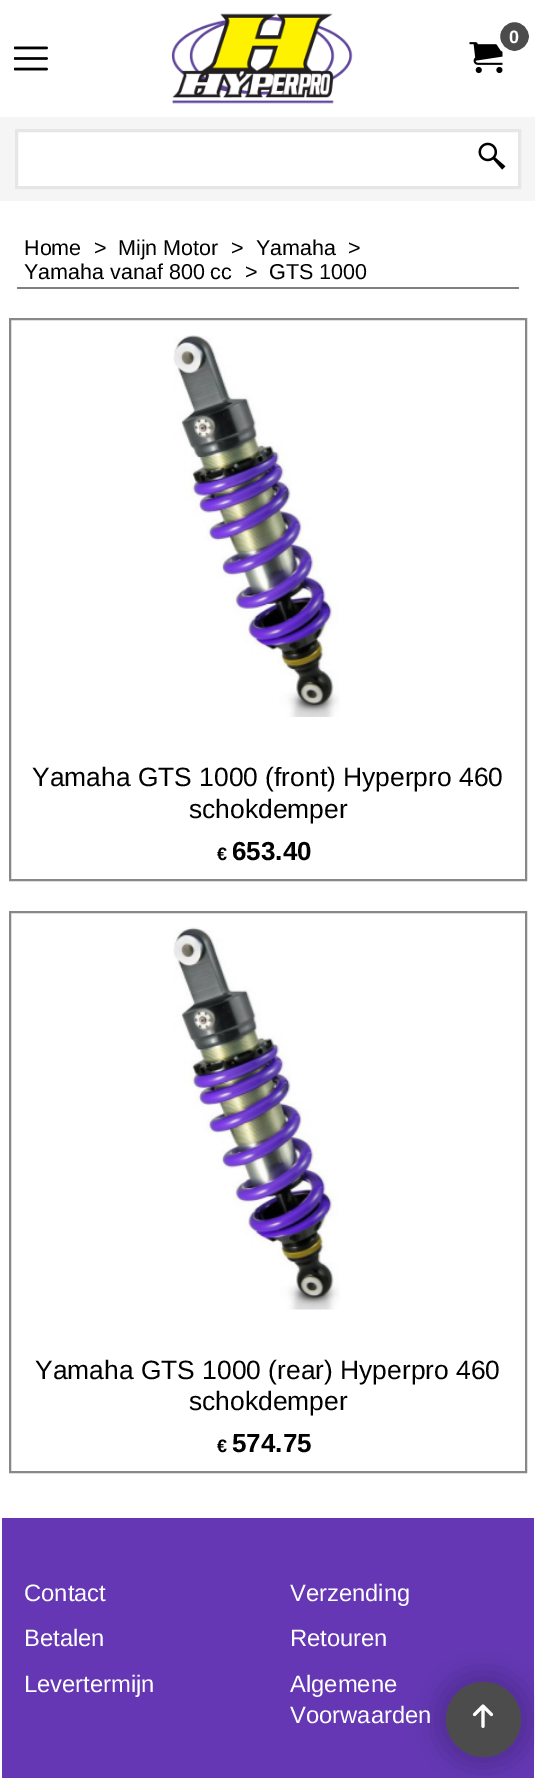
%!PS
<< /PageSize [535 1778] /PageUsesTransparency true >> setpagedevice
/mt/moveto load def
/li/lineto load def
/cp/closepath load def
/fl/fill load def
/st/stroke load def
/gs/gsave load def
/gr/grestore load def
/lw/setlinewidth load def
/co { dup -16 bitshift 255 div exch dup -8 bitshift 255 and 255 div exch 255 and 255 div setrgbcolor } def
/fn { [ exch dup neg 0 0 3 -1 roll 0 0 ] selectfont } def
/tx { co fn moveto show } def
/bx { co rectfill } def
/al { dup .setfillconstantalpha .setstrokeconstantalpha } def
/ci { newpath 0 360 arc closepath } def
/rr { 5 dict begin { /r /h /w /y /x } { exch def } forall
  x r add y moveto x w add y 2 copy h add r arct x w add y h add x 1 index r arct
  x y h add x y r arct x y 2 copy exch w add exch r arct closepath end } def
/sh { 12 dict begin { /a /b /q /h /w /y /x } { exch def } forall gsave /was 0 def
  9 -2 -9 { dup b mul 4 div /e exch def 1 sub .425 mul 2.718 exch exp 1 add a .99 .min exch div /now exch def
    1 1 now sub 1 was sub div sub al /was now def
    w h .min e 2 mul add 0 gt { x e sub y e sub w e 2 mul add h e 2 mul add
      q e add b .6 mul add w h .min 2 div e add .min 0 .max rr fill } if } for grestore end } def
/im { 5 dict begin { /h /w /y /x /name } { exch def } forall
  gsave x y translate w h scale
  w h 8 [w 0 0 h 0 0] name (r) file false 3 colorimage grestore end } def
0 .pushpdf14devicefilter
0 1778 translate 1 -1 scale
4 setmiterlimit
0 0 535 1778 16#FFFFFF bx
(media/1.raw) 171 13 182 91 im
(media/2.raw) 469 42 34 32 im
16#4C4C4C co
514.5 36.5 17 ci gs fl gr
16#FFFFFF co
5 lw
st
(media/3.raw) 14 46 34 25 im
0 117 535 84 16#F5F5F6 bx
16#FFFFFF co
16.5 130.5 mt 519.5 130.5 li 519.5 187.5 li 16.5 187.5 li cp gs fl gr
16#E6E6E6 co
3 lw
st
(media/4.raw) 478 142 28 28 im
17 287 502 2 16#7F7F7F bx
16#888888 co
2 lw
10 319 516 561 rectstroke
(media/5.raw) 173 335 167 382 im
10 912 516 560 rectstroke
(media/6.raw) 173 927 167 383 im
2 1518 532 260 16#6537B4 bx
16#000000 co
437 1673 93 93 46.5 13 .2 sh
16#4C4C4C co
483.5 1719.5 37.5 ci fl
(media/7.raw) 472 1704 22 24 im
(0) 509 43 /LiberationSans-Bold 18 16#FFFFFF tx
(Home) 24 255 /LiberationSans-Regular 21.5 16#000000 tx
(>) 94 255 /LiberationSans-Regular 21.5 16#000000 tx
(Mijn Motor) 118 255 /LiberationSans-Regular 21.5 16#000000 tx
(>) 231 255 /LiberationSans-Regular 21.5 16#000000 tx
(Yamaha) 256 255 /LiberationSans-Regular 21.5 16#000000 tx
(>) 348 255 /LiberationSans-Regular 21.5 16#000000 tx
(Yamaha vanaf 800 cc) 24 279 /LiberationSans-Regular 21.5 16#000000 tx
(>) 245 279 /LiberationSans-Regular 21.5 16#000000 tx
(GTS 1000) 269 279 /LiberationSans-Regular 21.5 16#000000 tx
(Yamaha GTS 1000 \(front\) Hyperpro 460) 32 786 /LiberationSans-Regular 26.4 16#000000 tx
(schokdemper) 189 818 /LiberationSans-Regular 26.4 16#000000 tx
(€) 217 860 /LiberationSans-Bold 18 16#000000 tx
(653.40) 232 860 /LiberationSans-Bold 26 16#000000 tx
(Yamaha GTS 1000 \(rear\) Hyperpro 460) 35 1379 /LiberationSans-Regular 26.4 16#000000 tx
(schokdemper) 189 1410 /LiberationSans-Regular 26.4 16#000000 tx
(€) 217 1452 /LiberationSans-Bold 18 16#000000 tx
(574.75) 232 1452 /LiberationSans-Bold 26 16#000000 tx
(Contact) 24 1601 /LiberationSans-Regular 23.75 16#FFFFFF tx
(Betalen) 24 1646 /LiberationSans-Regular 23.75 16#FFFFFF tx
(Levertermijn) 24 1692 /LiberationSans-Regular 23.75 16#FFFFFF tx
(Verzending) 290 1601 /LiberationSans-Regular 23.75 16#FFFFFF tx
(Retouren) 290 1646 /LiberationSans-Regular 23.75 16#FFFFFF tx
(Algemene) 290 1692 /LiberationSans-Regular 23.75 16#FFFFFF tx
(Voorwaarden) 290 1723 /LiberationSans-Regular 23.75 16#FFFFFF tx
.poppdf14devicefilter showpage
